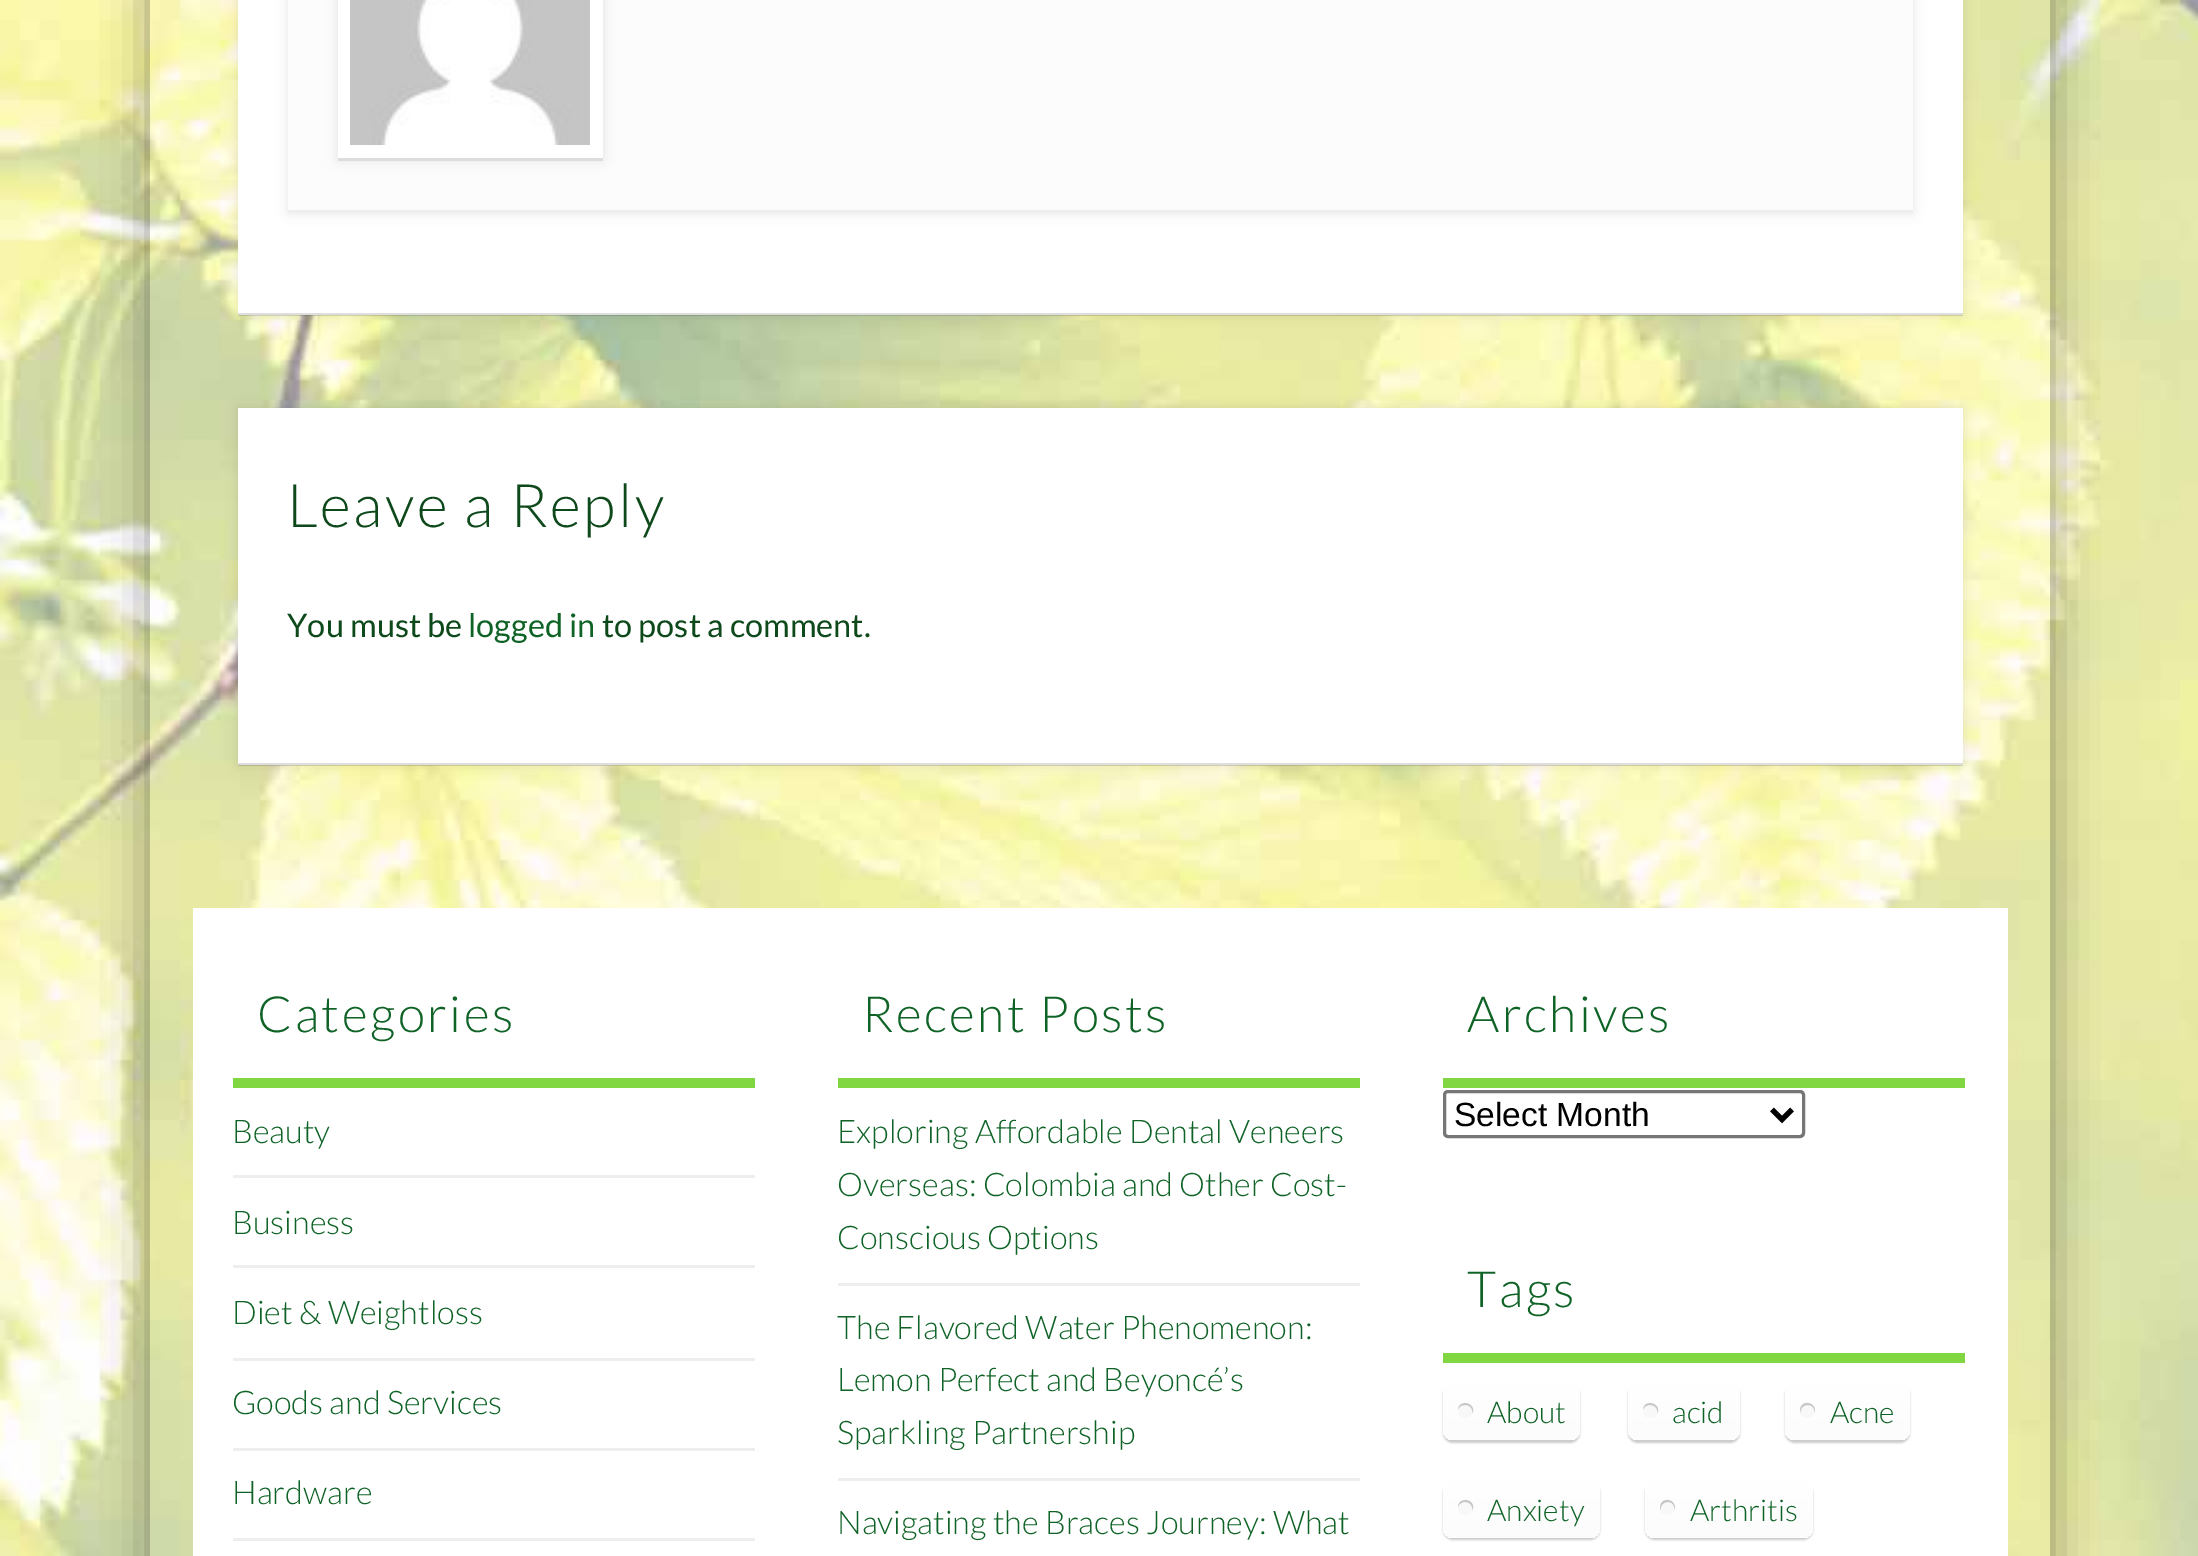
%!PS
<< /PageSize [2198 1556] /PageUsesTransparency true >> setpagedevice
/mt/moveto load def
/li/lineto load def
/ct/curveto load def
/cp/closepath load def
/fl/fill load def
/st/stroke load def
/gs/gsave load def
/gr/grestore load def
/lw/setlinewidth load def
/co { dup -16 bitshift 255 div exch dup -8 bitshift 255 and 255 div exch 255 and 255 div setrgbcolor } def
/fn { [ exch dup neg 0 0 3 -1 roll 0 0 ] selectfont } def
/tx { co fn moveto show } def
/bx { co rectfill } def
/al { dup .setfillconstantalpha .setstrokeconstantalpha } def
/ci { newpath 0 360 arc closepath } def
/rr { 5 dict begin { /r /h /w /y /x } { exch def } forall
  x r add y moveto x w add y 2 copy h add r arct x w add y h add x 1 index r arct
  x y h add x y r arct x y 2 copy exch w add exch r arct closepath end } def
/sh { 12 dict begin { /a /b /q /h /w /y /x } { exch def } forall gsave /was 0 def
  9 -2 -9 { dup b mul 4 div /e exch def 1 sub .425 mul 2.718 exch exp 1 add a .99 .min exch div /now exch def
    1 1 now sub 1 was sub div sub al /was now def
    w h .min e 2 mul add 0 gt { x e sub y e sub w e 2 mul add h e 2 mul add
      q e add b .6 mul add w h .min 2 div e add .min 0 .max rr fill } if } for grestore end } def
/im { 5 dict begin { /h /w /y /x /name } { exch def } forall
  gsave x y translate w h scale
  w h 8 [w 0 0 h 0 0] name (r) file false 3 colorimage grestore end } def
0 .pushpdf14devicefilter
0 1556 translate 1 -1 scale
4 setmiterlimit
0 0 2198 1556 16#FFFFFF bx
(media/1.raw) 0 0 2198 1556 im
gs
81 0 mt 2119 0 li 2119 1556 li 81 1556 li cp 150 -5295 mt 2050 -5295 li 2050 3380 li 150 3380 li cp eoclip newpath
16#000000 co
150 -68 1900 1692 0 22.5 .4 sh
gr
16#000000 co
238 -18 1725 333 0 6 .1 sh
238 0 1725 315 16#FFFFFF bx
0.13 al
238 313 1725 3 16#000000 bx
1 al
288 -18 1625 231 0 6 .1 sh
288 0 1625 210 16#FCFCFC bx
288 210 1625 3 16#EEEEEE bx
16#000000 co
338 -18 265 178 0 6 .1 sh
338 0 265 158 16#FFFFFF bx
338 158 265 3 16#DDDDDD bx
(media/2.raw) 350 0 240 145 im
16#000000 co
238 408 1725 357 0 6 .1 sh
238 408 1725 357 16#FFFFFF bx
0.13 al
238 763 1725 3 16#000000 bx
1 al
193 908 1815 648 16#FFFFFF bx
233 1078 522 10 16#81D742 bx
233 1175 522 3 16#EEEEEE bx
233 1265 522 3 16#EEEEEE bx
233 1358 522 3 16#EEEEEE bx
233 1448 522 3 16#EEEEEE bx
233 1538 522 3 16#EEEEEE bx
838 1078 522 10 16#81D742 bx
838 1283 522 3 16#EEEEEE bx
838 1478 522 3 16#EEEEEE bx
1443 1078 522 10 16#81D742 bx
16#767676 co
3 lw
1444.5 1091.5 359 45 3.5 rr st
16#000000 co
5 lw
1772 1109.5 mt 1782 1119.5 li 1792 1109.5 li st
1443 1353 522 10 16#81D742 bx
16#000000 co
1443 1385 137 58 10 1 .2 sh
gs 1443 1383 137 57 10 rr clip newpath
<< /ShadingType 2 /ColorSpace /DeviceRGB /Coords [1511 1383 1511 1440] /Extend [true true] /Function << /FunctionType 2 /Domain [0 1] /C0 [1 1 1] /C1 [.988 .988 .988] /N 1 >> >> shfill gr
16#F8F8F8 co
1465.5 1410.5 7.5 ci fl
16#C7C7C7 co
1465 1405 mt 1470.5 1405 1473 1409.5 1472.5 1413.5 ct 1476.5 1403 1459.5 1398.5 1458 1409.5 ct 1459 1407 1461.5 1405 1465 1405 ct cp fl
16#000000 co
1628 1385 112 58 10 1 .2 sh
gs 1628 1383 112 57 10 rr clip newpath
<< /ShadingType 2 /ColorSpace /DeviceRGB /Coords [1684 1383 1684 1440] /Extend [true true] /Function << /FunctionType 2 /Domain [0 1] /C0 [1 1 1] /C1 [.988 .988 .988] /N 1 >> >> shfill gr
16#F8F8F8 co
1650.5 1410.5 7.5 ci fl
16#C7C7C7 co
1650 1405 mt 1655.5 1405 1658 1409.5 1657.5 1413.5 ct 1661.5 1403 1644.5 1398.5 1643 1409.5 ct 1644 1407 1646.5 1405 1650 1405 ct cp fl
16#000000 co
1785 1385 125 58 10 1 .2 sh
gs 1785 1383 125 57 10 rr clip newpath
<< /ShadingType 2 /ColorSpace /DeviceRGB /Coords [1848 1383 1848 1440] /Extend [true true] /Function << /FunctionType 2 /Domain [0 1] /C0 [1 1 1] /C1 [.988 .988 .988] /N 1 >> >> shfill gr
16#F8F8F8 co
1807.5 1410.5 7.5 ci fl
0.2 al
16#000000 co
1808 1405 mt 1812.5 1405 1814.5 1408.5 1814.5 1412.5 ct 1817 1403.5 1804 1399 1800.5 1407.5 ct 1800 1409.5 1800 1411.5 1800.5 1413.5 ct 1800 1409.5 1802.5 1405 1808 1405 ct cp fl
1 al
1443 1483 157 57 10 1 .2 sh
gs 1443 1480 157 58 10 rr clip newpath
<< /ShadingType 2 /ColorSpace /DeviceRGB /Coords [1521 1480 1521 1538] /Extend [true true] /Function << /FunctionType 2 /Domain [0 1] /C0 [1 1 1] /C1 [.988 .988 .988] /N 1 >> >> shfill gr
16#F8F8F8 co
1465.5 1507.5 7.5 ci fl
0.2 al
16#000000 co
1465 1502 mt 1470 1502 1472.5 1506 1472.5 1510 ct 1476.5 1499.5 1459 1495.5 1458 1507 ct 1459 1504 1461.5 1502 1465 1502 ct cp fl
1 al
1645 1483 168 57 10 1 .2 sh
gs 1645 1480 168 58 10 rr clip newpath
<< /ShadingType 2 /ColorSpace /DeviceRGB /Coords [1729 1480 1729 1538] /Extend [true true] /Function << /FunctionType 2 /Domain [0 1] /C0 [1 1 1] /C1 [.988 .988 .988] /N 1 >> >> shfill gr
16#F8F8F8 co
1667.5 1507.5 7.5 ci fl
0.2 al
16#000000 co
1668 1502 mt 1672.5 1502 1674.5 1505.5 1674.5 1509.5 ct 1677 1500.5 1664 1496 1660.5 1504.5 ct 1660 1506.5 1660 1508.5 1660.5 1510 ct 1660.5 1506 1663 1502 1668 1502 ct cp fl
/Lato-Light 60 fn
1 al
16#0E491B co
287 527 mt 2.5 0 (Leave a Reply) ashow
(You must be) 287 637 /Lato-Regular 32.5 16#0E491B tx
(logged in) 468 637 /Lato-Regular 32.5 16#0F6326 tx
(to post a comment.) 602 637 /Lato-Regular 32.5 16#0E491B tx
/Lato-Light 50 fn
16#0F6326 co
257 1032 mt 2.5 0 (Categories) ashow
(Beauty) 232 1143 /Lato-Light 32.5 16#0F6326 tx
(Business) 232 1234 /Lato-Light 32.5 16#0F6326 tx
(Diet & Weightloss) 232 1324 /Lato-Light 32.5 16#0F6326 tx
(Goods and Services) 232 1414 /Lato-Light 32.5 16#0F6326 tx
(Hardware) 232 1504 /Lato-Light 32.5 16#0F6326 tx
/Lato-Light 50 fn
862 1032 mt 2.5 0 (Recent Posts) ashow
(Exploring Affordable Dental Veneers) 837 1143 /Lato-Light 32.5 16#0F6326 tx
(Overseas: Colombia and Other Cost-) 837 1196 /Lato-Light 32.5 16#0F6326 tx
(Conscious Options) 837 1249 /Lato-Light 32.5 16#0F6326 tx
(The Flavored Water Phenomenon:) 837 1339 /Lato-Light 32.5 16#0F6326 tx
(Lemon Perfect and Beyoncé’s) 837 1391 /Lato-Light 32.5 16#0F6326 tx
(Sparkling Partnership) 837 1444 /Lato-Light 32.5 16#0F6326 tx
(Navigating the Braces Journey: What) 837 1534 /Lato-Light 32.5 16#0F6326 tx
/Lato-Light 50 fn
1467 1032 mt 2.5 0 (Archives) ashow
(Select Month) 1454 1126 /LiberationSans-Regular 33.5 16#000000 tx
/Lato-Light 50 fn
16#0F6326 co
1467 1307 mt 2.5 0 (Tags) ashow
(About) 1487 1423 /Lato-Light 30 16#0F6326 tx
(acid) 1672 1423 /Lato-Light 30 16#0F6326 tx
(Acne) 1830 1423 /Lato-Light 30 16#0F6326 tx
(Anxiety) 1487 1521 /Lato-Light 30 16#0F6326 tx
(Arthritis) 1690 1521 /Lato-Light 30 16#0F6326 tx
.poppdf14devicefilter showpage
